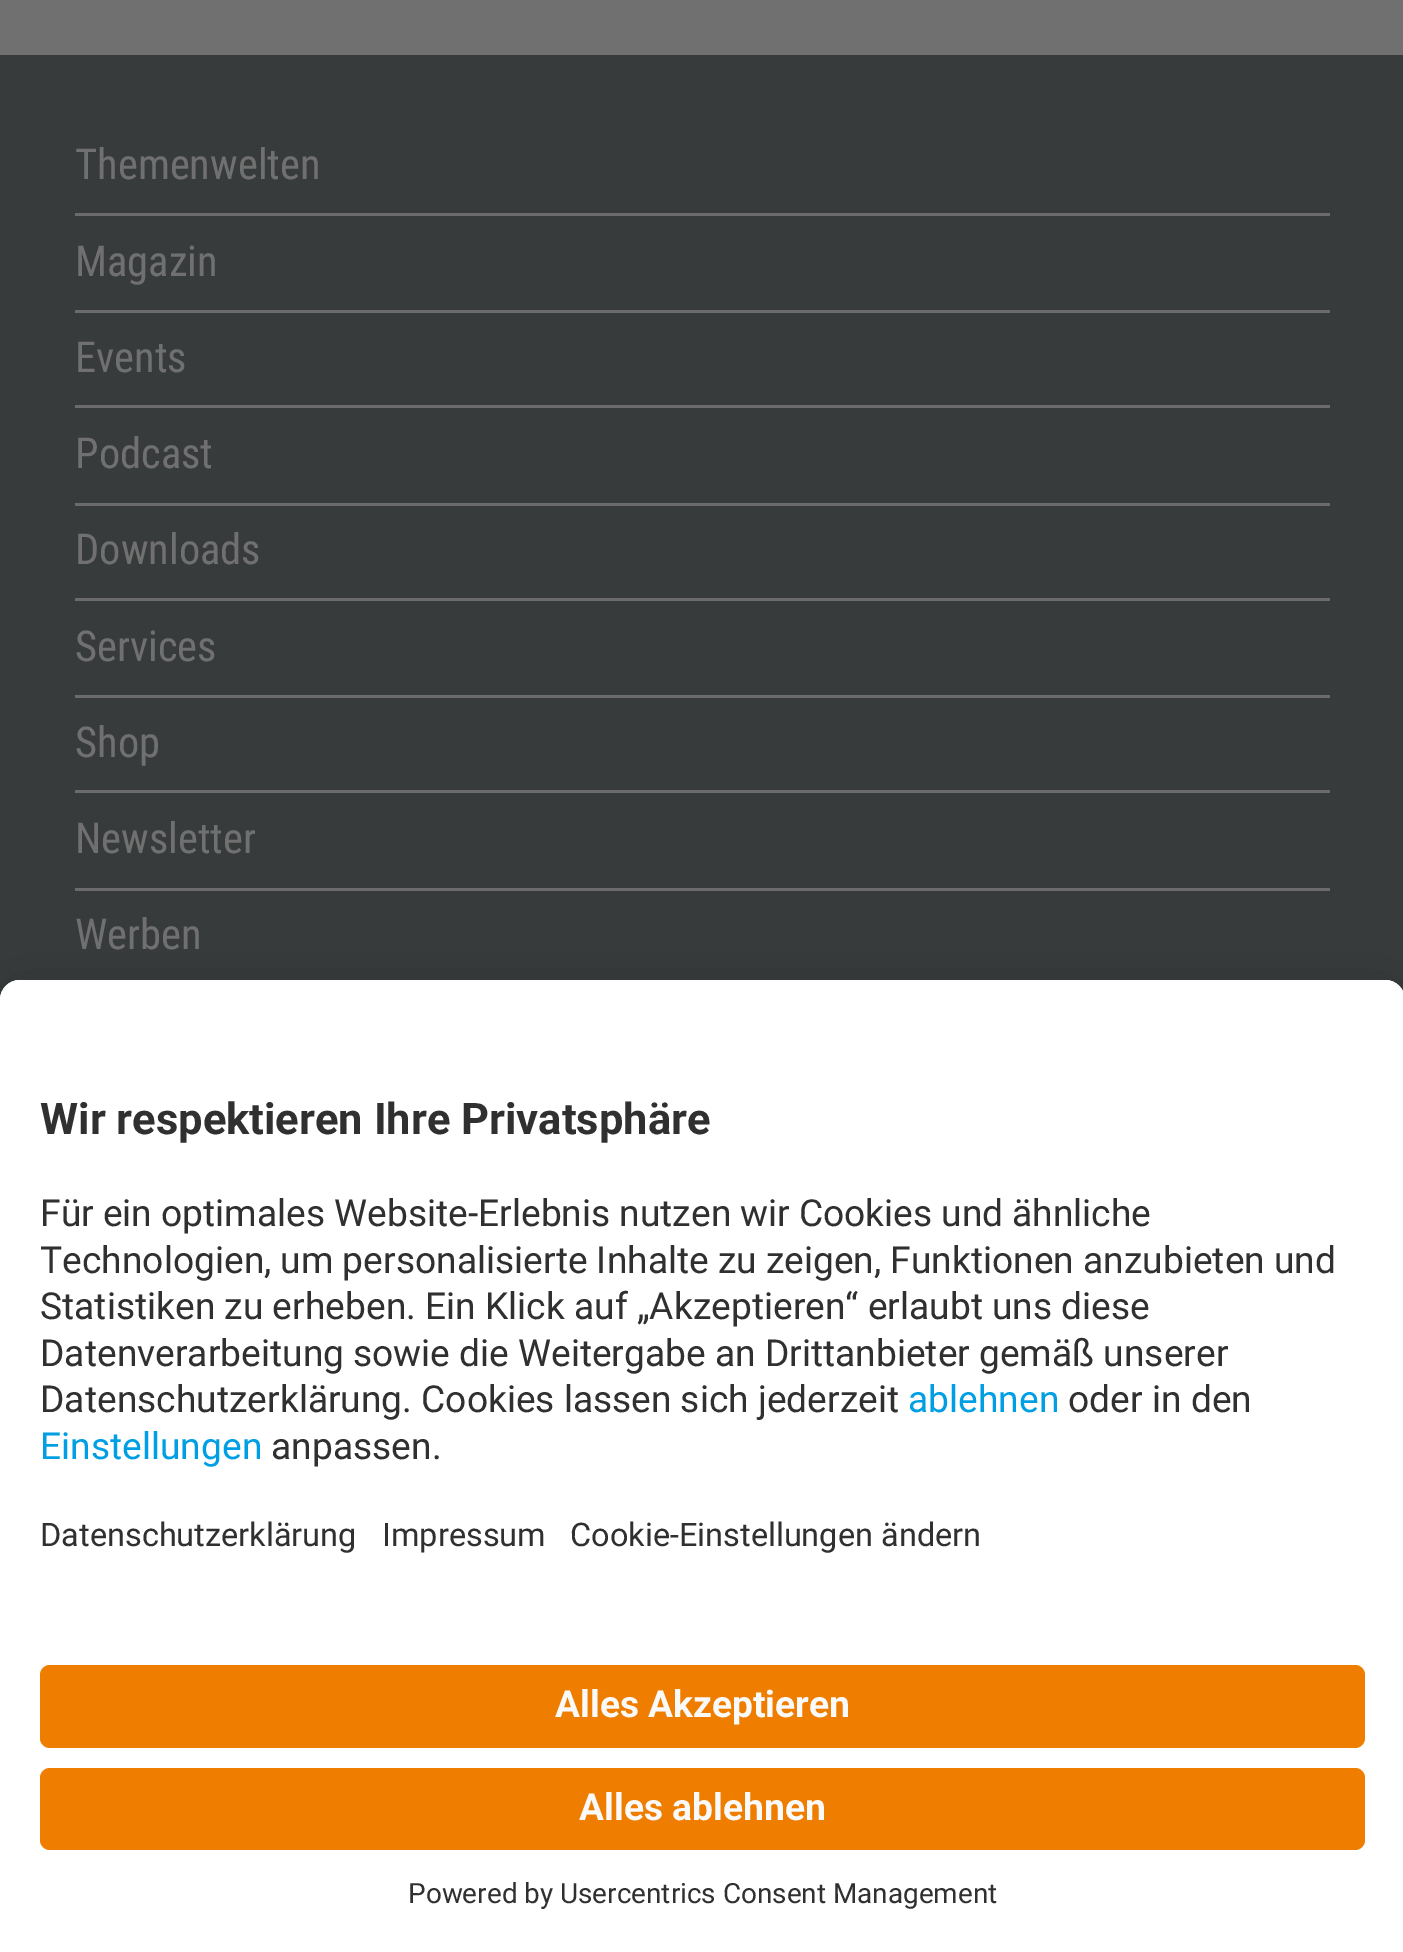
%!PS
<< /PageSize [1403 1952] /PageUsesTransparency true >> setpagedevice
/mt/moveto load def
/li/lineto load def
/ct/curveto load def
/cp/closepath load def
/fl/fill load def
/co { dup -16 bitshift 255 div exch dup -8 bitshift 255 and 255 div exch 255 and 255 div setrgbcolor } def
/fn { [ exch dup neg 0 0 3 -1 roll 0 0 ] selectfont } def
/tx { co fn moveto show } def
/bx { co rectfill } def
/al { dup .setfillconstantalpha .setstrokeconstantalpha } def
/rr { 5 dict begin { /r /h /w /y /x } { exch def } forall
  x r add y moveto x w add y 2 copy h add r arct x w add y h add x 1 index r arct
  x y h add x y r arct x y 2 copy exch w add exch r arct closepath end } def
/sh { 12 dict begin { /a /b /q /h /w /y /x } { exch def } forall gsave /was 0 def
  9 -2 -9 { dup b mul 4 div /e exch def 1 sub .425 mul 2.718 exch exp 1 add a .99 .min exch div /now exch def
    1 1 now sub 1 was sub div sub al /was now def
    w h .min e 2 mul add 0 gt { x e sub y e sub w e 2 mul add h e 2 mul add
      q e add b .6 mul add w h .min 2 div e add .min 0 .max rr fill } if } for grestore end } def
0 .pushpdf14devicefilter
0 1952 translate 1 -1 scale
4 setmiterlimit
0 0 1403 1952 16#707070 bx
0 55 1403 945 16#383B3C bx
75 213 1255 3 16#6B6B6B bx
75 310 1255 3 16#6B6B6B bx
75 405 1255 3 16#6B6B6B bx
75 503 1255 3 16#6B6B6B bx
75 598 1255 3 16#6B6B6B bx
75 695 1255 3 16#6B6B6B bx
75 790 1255 3 16#6B6B6B bx
75 888 1255 3 16#6B6B6B bx
16#000000 co
0 993 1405 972 20 32.5 .22 sh
16#FFFFFF co
20 980 mt 1385 980 li 1396 980 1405 989 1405 1000 ct 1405 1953 li 0 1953 li 0 1000 li 0 989 9 980 20 980 ct cp fl
20 980 mt 1385 980 li 1396 980 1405 989 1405 1000 ct 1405 1635 li 0 1635 li 0 1000 li 0 989 9 980 20 980 ct cp fl
16#EF7D00 co
40 1665 1325 83 10 rr fl
40 1768 1325 82 10 rr fl
(Themenwelten) 75 179 /RobotoCondensed-Regular 42.5 16#707070 tx
(Magazin) 75 276 /RobotoCondensed-Regular 42.5 16#707070 tx
(Events) 75 372 /RobotoCondensed-Regular 42.5 16#707070 tx
(Podcast) 75 468 /RobotoCondensed-Regular 42.5 16#707070 tx
(Downloads) 75 564 /RobotoCondensed-Regular 42.5 16#707070 tx
(Services) 75 661 /RobotoCondensed-Regular 42.5 16#707070 tx
(Shop) 75 757 /RobotoCondensed-Regular 42.5 16#707070 tx
(Newsletter) 75 853 /RobotoCondensed-Regular 42.5 16#707070 tx
(Werben) 75 949 /RobotoCondensed-Regular 42.5 16#707070 tx
(Wir respektieren Ihre Privatsphäre) 40 1134 /Roboto-Bold 43.5 16#303030 tx
/Roboto-Regular 37.2 fn
40 1226 mt -.25 0 32 (Für ein optimales Website-Erlebnis nutzen wir Cookies und ähnliche) widthshow
40 1273 mt -.25 0 32 (Technologien, um personalisierte Inhalte zu zeigen, Funktionen anzubieten und) widthshow
40 1319 mt -.1 0 32 (Statistiken zu erheben. Ein Klick auf „Akzeptieren“ erlaubt uns diese) widthshow
40 1366 mt -.25 0 32 (Datenverarbeitung sowie die Weitergabe an Drittanbieter gemäß unserer) widthshow
40 1412 mt -.25 0 32 (Datenschutzerklärung. Cookies lassen sich jederzeit) widthshow
(ablehnen) 908 1412 /Roboto-Regular 37.2 16#009FE3 tx
(oder in den) 1068 1412 /Roboto-Regular 37.2 16#303030 tx
(Einstellungen) 40 1459 /Roboto-Regular 37.2 16#009FE3 tx
(anpassen.) 271 1459 /Roboto-Regular 37.2 16#303030 tx
(Datenschutzerklärung) 40 1546 /Roboto-Regular 32.5 16#303030 tx
(Impressum) 382 1546 /Roboto-Regular 32.5 16#303030 tx
(Cookie-Einstellungen ändern) 570 1546 /Roboto-Regular 32.5 16#303030 tx
(Alles Akzeptieren) 555 1717 /Roboto-Bold 37.2 16#FAFAFA tx
(Alles ablehnen) 579 1820 /Roboto-Bold 37.2 16#FAFAFA tx
(Powered by Usercentrics Consent Management) 408 1903 /Roboto-Regular 27.9 16#303030 tx
.poppdf14devicefilter showpage
